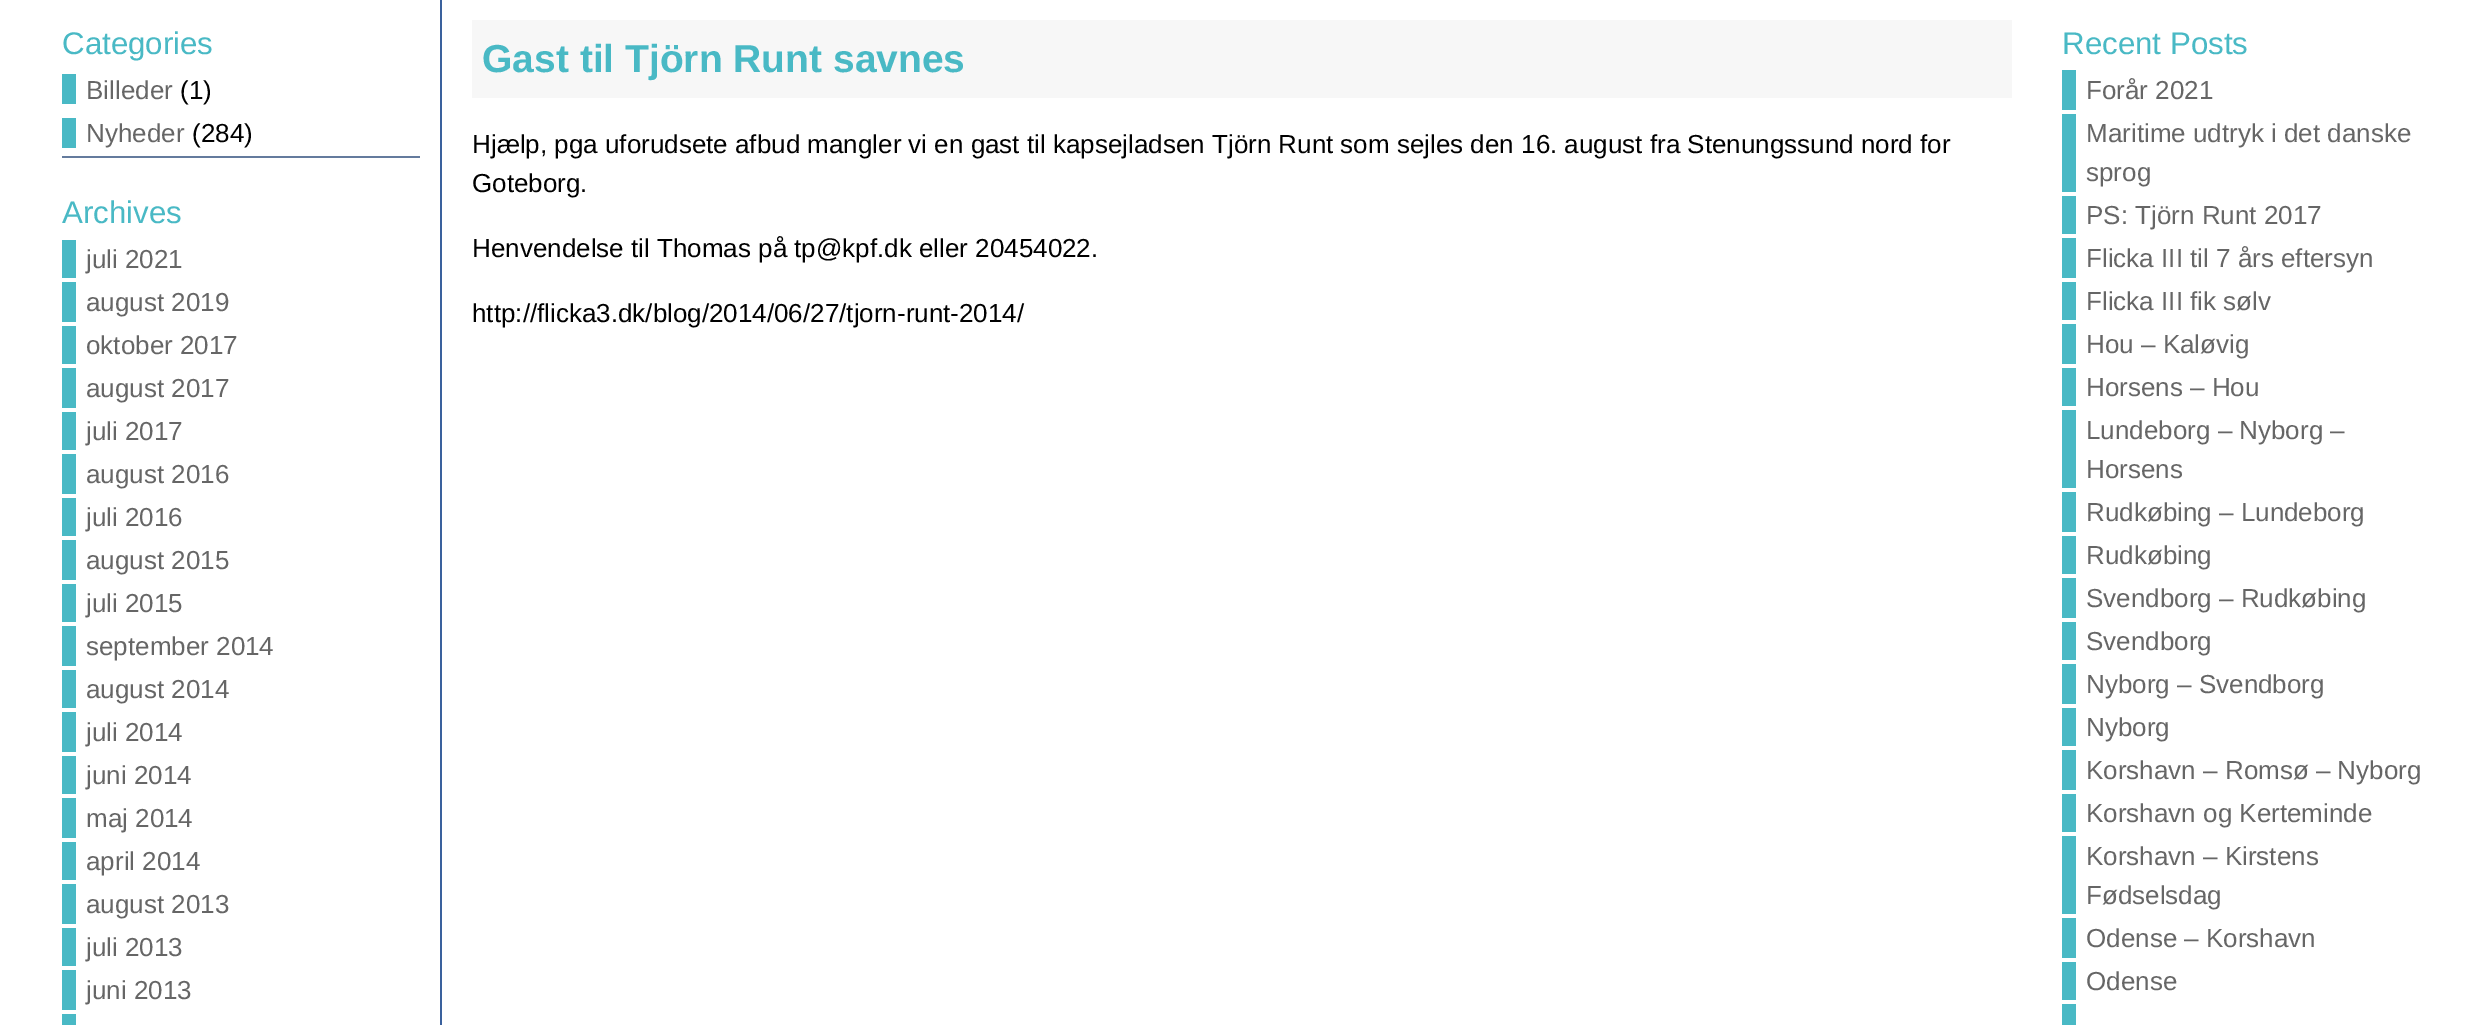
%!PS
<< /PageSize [2483 1025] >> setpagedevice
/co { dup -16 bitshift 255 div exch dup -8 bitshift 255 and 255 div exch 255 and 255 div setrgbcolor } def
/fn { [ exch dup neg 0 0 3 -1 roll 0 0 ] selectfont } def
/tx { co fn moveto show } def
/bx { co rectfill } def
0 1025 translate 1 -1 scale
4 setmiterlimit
0 0 2483 1025 16#FFFFFF bx
440 0 2 1025 16#3A619D bx
62 156 358 2 16#647B9D bx
62 74 14 30 16#49B9C5 bx
62 118 14 30 16#49B9C5 bx
62 240 14 38 16#49B9C5 bx
62 282 14 40 16#49B9C5 bx
62 326 14 38 16#49B9C5 bx
62 368 14 40 16#49B9C5 bx
62 412 14 38 16#49B9C5 bx
62 454 14 40 16#49B9C5 bx
62 498 14 38 16#49B9C5 bx
62 540 14 40 16#49B9C5 bx
62 584 14 38 16#49B9C5 bx
62 626 14 40 16#49B9C5 bx
62 670 14 38 16#49B9C5 bx
62 712 14 40 16#49B9C5 bx
62 756 14 38 16#49B9C5 bx
62 798 14 40 16#49B9C5 bx
62 842 14 38 16#49B9C5 bx
62 884 14 40 16#49B9C5 bx
62 928 14 38 16#49B9C5 bx
62 970 14 40 16#49B9C5 bx
62 1014 14 11 16#49B9C5 bx
472 20 1540 78 16#F7F7F7 bx
2062 70 14 40 16#49B9C5 bx
2062 114 14 78 16#49B9C5 bx
2062 196 14 38 16#49B9C5 bx
2062 238 14 40 16#49B9C5 bx
2062 282 14 38 16#49B9C5 bx
2062 324 14 40 16#49B9C5 bx
2062 368 14 38 16#49B9C5 bx
2062 410 14 78 16#49B9C5 bx
2062 492 14 40 16#49B9C5 bx
2062 536 14 38 16#49B9C5 bx
2062 578 14 40 16#49B9C5 bx
2062 622 14 38 16#49B9C5 bx
2062 664 14 40 16#49B9C5 bx
2062 708 14 38 16#49B9C5 bx
2062 750 14 40 16#49B9C5 bx
2062 794 14 38 16#49B9C5 bx
2062 836 14 78 16#49B9C5 bx
2062 918 14 40 16#49B9C5 bx
2062 962 14 38 16#49B9C5 bx
2062 1004 14 21 16#49B9C5 bx
(Categories) 62 54 /LiberationSans-Regular 31.25 16#49B9C5 tx
(Billeder) 86 99 /LiberationSans-Regular 26 16#666666 tx
(\(1\)) 180 99 /LiberationSans-Regular 26 16#000000 tx
(Nyheder) 86 142 /LiberationSans-Regular 26 16#666666 tx
(\(284\)) 192 142 /LiberationSans-Regular 26 16#000000 tx
(Archives) 62 223 /LiberationSans-Regular 31.25 16#49B9C5 tx
(juli 2021) 86 268 /LiberationSans-Regular 26 16#666666 tx
(august 2019) 86 311 /LiberationSans-Regular 26 16#666666 tx
(oktober 2017) 86 354 /LiberationSans-Regular 26 16#666666 tx
(august 2017) 86 397 /LiberationSans-Regular 26 16#666666 tx
(juli 2017) 86 440 /LiberationSans-Regular 26 16#666666 tx
(august 2016) 86 483 /LiberationSans-Regular 26 16#666666 tx
(juli 2016) 86 526 /LiberationSans-Regular 26 16#666666 tx
(august 2015) 86 569 /LiberationSans-Regular 26 16#666666 tx
(juli 2015) 86 612 /LiberationSans-Regular 26 16#666666 tx
(september 2014) 86 655 /LiberationSans-Regular 26 16#666666 tx
(august 2014) 86 698 /LiberationSans-Regular 26 16#666666 tx
(juli 2014) 86 741 /LiberationSans-Regular 26 16#666666 tx
(juni 2014) 86 784 /LiberationSans-Regular 26 16#666666 tx
(maj 2014) 86 827 /LiberationSans-Regular 26 16#666666 tx
(april 2014) 86 870 /LiberationSans-Regular 26 16#666666 tx
(august 2013) 86 913 /LiberationSans-Regular 26 16#666666 tx
(juli 2013) 86 956 /LiberationSans-Regular 26 16#666666 tx
(juni 2013) 86 999 /LiberationSans-Regular 26 16#666666 tx
(Gast til Tjörn Runt savnes) 482 72 /LiberationSans-Bold 39 16#49B9C5 tx
(Hjælp, pga uforudsete afbud mangler vi en gast til kapsejladsen Tjörn Runt som sejles den 16. august fra Stenungssund nord for) 472 153 /LiberationSans-Regular 26 16#000000 tx
(Goteborg.) 472 192 /LiberationSans-Regular 26 16#000000 tx
(Henvendelse til Thomas på tp@kpf.dk eller 20454022.) 472 257 /LiberationSans-Regular 26 16#000000 tx
(http://flicka3.dk/blog/2014/06/27/tjorn-runt-2014/) 472 322 /LiberationSans-Regular 26 16#000000 tx
(Recent Posts) 2062 54 /LiberationSans-Regular 31.25 16#49B9C5 tx
(Forår 2021) 2086 99 /LiberationSans-Regular 26 16#666666 tx
(Maritime udtryk i det danske) 2086 142 /LiberationSans-Regular 26 16#666666 tx
(sprog) 2086 181 /LiberationSans-Regular 26 16#666666 tx
(PS: Tjörn Runt 2017) 2086 224 /LiberationSans-Regular 26 16#666666 tx
(Flicka III til 7 års eftersyn) 2086 267 /LiberationSans-Regular 26 16#666666 tx
(Flicka III fik sølv) 2086 310 /LiberationSans-Regular 26 16#666666 tx
(Hou – Kaløvig) 2086 353 /LiberationSans-Regular 26 16#666666 tx
(Horsens – Hou) 2086 396 /LiberationSans-Regular 26 16#666666 tx
(Lundeborg – Nyborg –) 2086 439 /LiberationSans-Regular 26 16#666666 tx
(Horsens) 2086 478 /LiberationSans-Regular 26 16#666666 tx
(Rudkøbing – Lundeborg) 2086 521 /LiberationSans-Regular 26 16#666666 tx
(Rudkøbing) 2086 564 /LiberationSans-Regular 26 16#666666 tx
(Svendborg – Rudkøbing) 2086 607 /LiberationSans-Regular 26 16#666666 tx
(Svendborg) 2086 650 /LiberationSans-Regular 26 16#666666 tx
(Nyborg – Svendborg) 2086 693 /LiberationSans-Regular 26 16#666666 tx
(Nyborg) 2086 736 /LiberationSans-Regular 26 16#666666 tx
(Korshavn – Romsø – Nyborg) 2086 779 /LiberationSans-Regular 26 16#666666 tx
(Korshavn og Kerteminde) 2086 822 /LiberationSans-Regular 26 16#666666 tx
(Korshavn – Kirstens) 2086 865 /LiberationSans-Regular 26 16#666666 tx
(Fødselsdag) 2086 904 /LiberationSans-Regular 26 16#666666 tx
(Odense – Korshavn) 2086 947 /LiberationSans-Regular 26 16#666666 tx
(Odense) 2086 990 /LiberationSans-Regular 26 16#666666 tx
showpage
